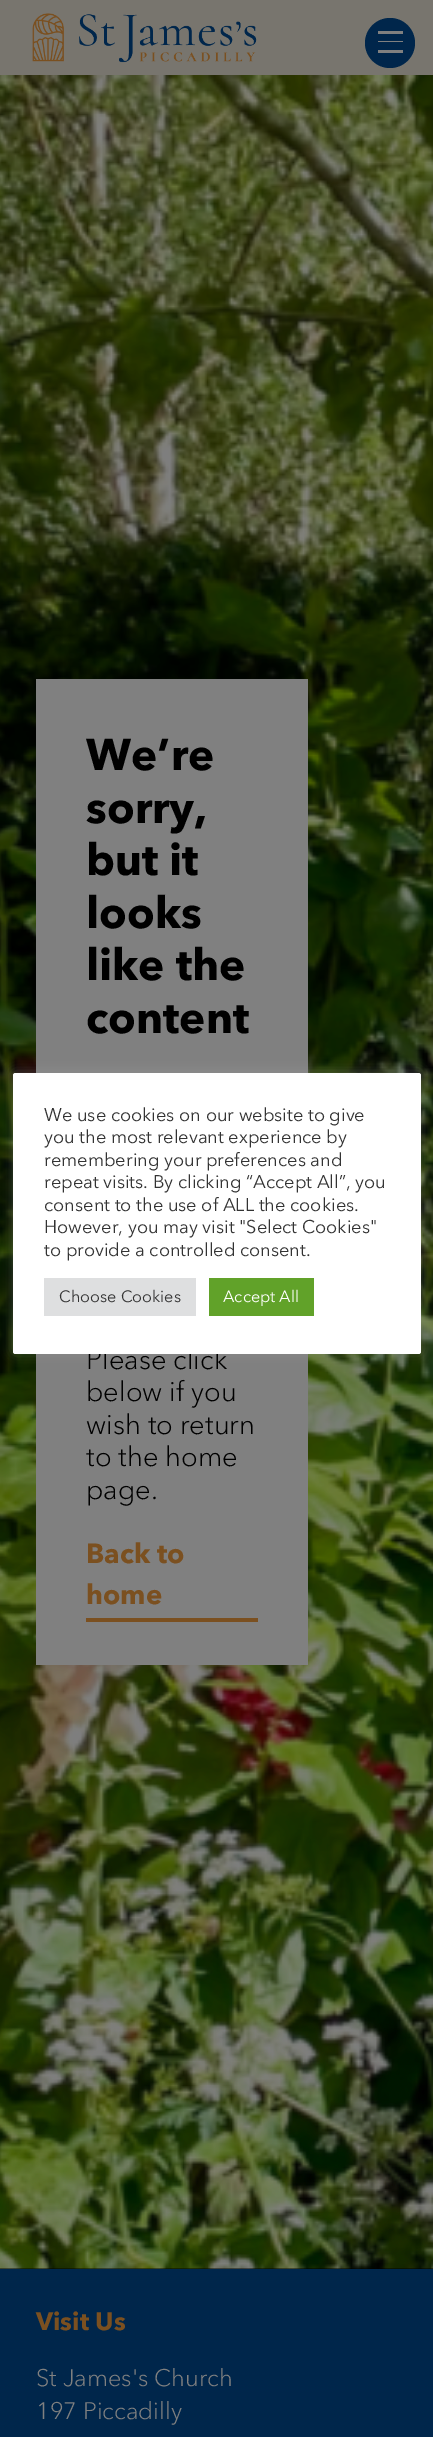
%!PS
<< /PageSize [433 2437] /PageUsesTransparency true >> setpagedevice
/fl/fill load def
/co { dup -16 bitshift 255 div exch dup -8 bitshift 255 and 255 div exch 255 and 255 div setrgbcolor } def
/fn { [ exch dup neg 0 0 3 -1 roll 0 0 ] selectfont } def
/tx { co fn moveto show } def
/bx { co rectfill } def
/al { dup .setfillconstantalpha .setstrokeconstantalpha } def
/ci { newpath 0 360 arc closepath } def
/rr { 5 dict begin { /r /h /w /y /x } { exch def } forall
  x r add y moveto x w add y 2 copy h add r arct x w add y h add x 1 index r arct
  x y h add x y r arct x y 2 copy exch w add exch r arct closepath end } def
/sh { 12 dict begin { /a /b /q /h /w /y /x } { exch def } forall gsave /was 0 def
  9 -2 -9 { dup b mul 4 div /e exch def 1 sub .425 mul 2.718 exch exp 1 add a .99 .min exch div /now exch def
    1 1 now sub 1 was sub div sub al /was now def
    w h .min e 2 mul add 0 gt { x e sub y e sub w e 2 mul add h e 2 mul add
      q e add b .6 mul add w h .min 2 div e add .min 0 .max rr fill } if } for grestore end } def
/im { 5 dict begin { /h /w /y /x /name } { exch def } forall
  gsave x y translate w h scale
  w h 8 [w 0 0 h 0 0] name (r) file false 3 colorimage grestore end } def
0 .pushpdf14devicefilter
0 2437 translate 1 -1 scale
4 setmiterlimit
0 0 433 2437 16#00264B bx
0 0 433 75 16#78756E bx
(media/1.raw) 32 13 225 50 im
16#00264B co
390 43 25 ci fl
378 41 25 1 16#808080 bx
378 31 25 3 16#808080 bx
378 50 25 3 16#808080 bx
0 2268 433 1 16#000000 bx
(media/2.raw) 0 75 433 2194 im
36 679 272 986 16#808080 bx
86 1618 172 4 16#7B5020 bx
16#ACABAB co
13 1071 408 282 2.5 6 .3 sh
(We’re) 86 770 /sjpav-Bold 44 16#000000 tx
(sorry,) 86 823 /sjpav-Bold 44 16#000000 tx
(but it) 86 875 /sjpav-Bold 44 16#000000 tx
(looks) 86 928 /sjpav-Bold 44 16#000000 tx
(like the) 86 980 /sjpav-Bold 44 16#000000 tx
(content) 86 1033 /sjpav-Bold 44 16#000000 tx
(Please click) 86 1369 /sjpav-Light 27.5 16#000000 tx
(below if you) 86 1401 /sjpav-Light 27.5 16#000000 tx
(wish to return) 86 1434 /sjpav-Light 27.5 16#000000 tx
(to the home) 86 1466 /sjpav-Light 27.5 16#000000 tx
(page.) 86 1499 /sjpav-Light 27.5 16#000000 tx
(Back to) 86 1563 /sjpav-Bold 27.5 16#7B5020 tx
(home) 86 1604 /sjpav-Bold 27.5 16#7B5020 tx
16#FFFFFF co
13 1073 408 281 2.5 rr fl
(We use cookies on our website to give) 44 1121 /sjpav-Regular 18.3 16#333333 tx
(you the most relevant experience by) 44 1143 /sjpav-Regular 18.3 16#333333 tx
(remembering your preferences and) 44 1166 /sjpav-Regular 18.3 16#333333 tx
(repeat visits. By clicking “Accept All”, you) 44 1188 /sjpav-Regular 18.3 16#333333 tx
(consent to the use of ALL the cookies.) 44 1211 /sjpav-Regular 18.3 16#333333 tx
(However, you may visit "Select Cookies") 44 1233 /sjpav-Regular 18.3 16#333333 tx
(to provide a controlled consent.) 44 1256 /sjpav-Regular 18.3 16#333333 tx
44 1278 152 38 16#DEDFE0 bx
(Choose Cookies) 59 1302 /sjpav-Regular 16.25 16#333333 tx
209 1278 105 38 16#61A229 bx
(Accept All) 223 1302 /sjpav-Regular 16.25 16#FFFFFF tx
(Visit Us) 36 2330 /sjpav-Bold 25 16#7B5020 tx
(St James's Church) 36 2386 /sjpav-Light 23.75 16#808080 tx
(197 Piccadilly) 36 2419 /sjpav-Light 23.75 16#808080 tx
.poppdf14devicefilter showpage
